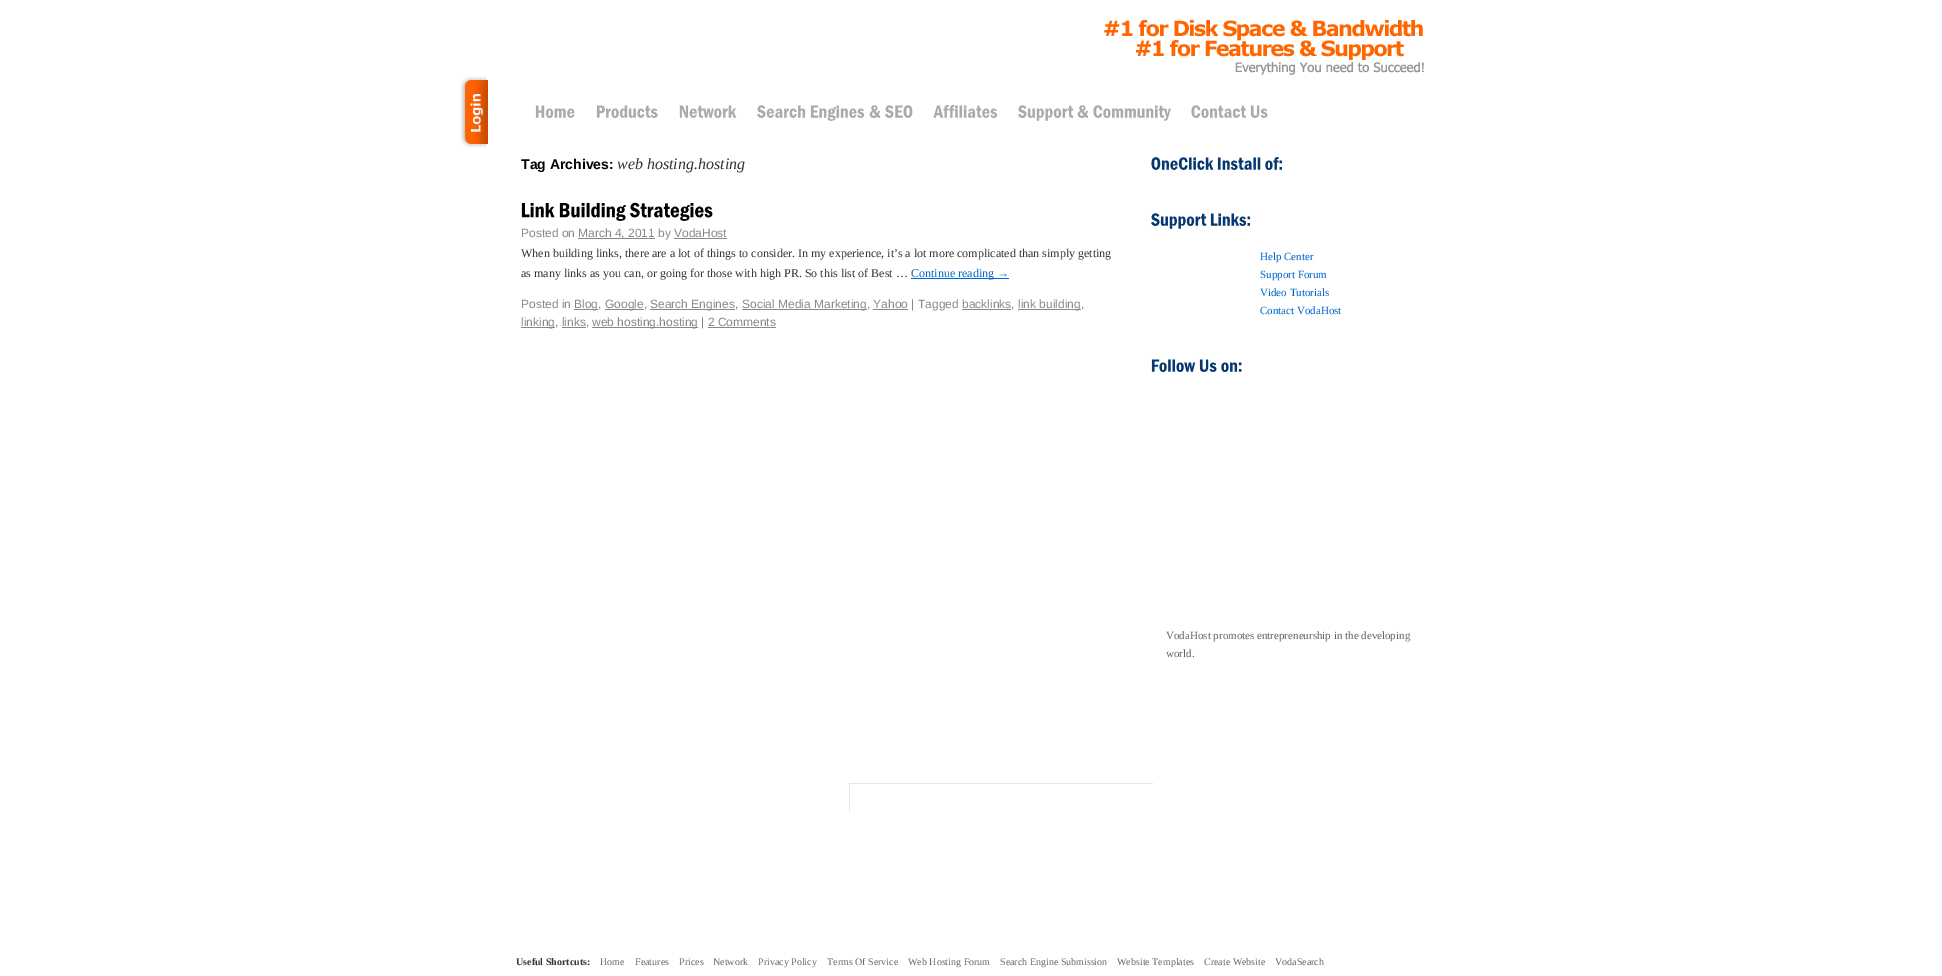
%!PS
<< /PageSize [1942 976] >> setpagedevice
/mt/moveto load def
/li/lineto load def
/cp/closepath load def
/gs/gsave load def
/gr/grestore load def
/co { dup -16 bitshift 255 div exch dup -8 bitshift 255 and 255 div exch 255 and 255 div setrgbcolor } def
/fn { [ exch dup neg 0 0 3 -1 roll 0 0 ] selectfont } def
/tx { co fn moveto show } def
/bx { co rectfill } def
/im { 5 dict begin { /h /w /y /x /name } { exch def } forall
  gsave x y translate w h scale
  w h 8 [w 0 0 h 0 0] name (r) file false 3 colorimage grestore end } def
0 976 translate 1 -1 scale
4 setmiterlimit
0 0 1942 976 16#FFFFFF bx
(media/1.raw) 1104 20 320 55 im
(media/2.raw) 460 76 28 72 im
(media/3.raw) 535 105 40 13 im
(media/4.raw) 596 105 62 13 im
(media/5.raw) 679 105 58 13 im
(media/6.raw) 757 105 49 13 im
(media/7.raw) 810 105 55 16 im
(media/8.raw) 869 105 12 13 im
(media/9.raw) 885 105 28 13 im
(media/10.raw) 933 105 65 13 im
(media/11.raw) 1018 105 56 16 im
(media/8.raw) 1077 105 12 13 im
(media/12.raw) 1093 105 78 16 im
(media/13.raw) 1191 105 55 13 im
(media/14.raw) 1250 105 18 13 im
(media/15.raw) 521 203 34 15 im
(media/16.raw) 559 203 67 18 im
(media/17.raw) 630 202 83 19 im
578 238 77 1 16#888888 bx
674 238 53 1 16#888888 bx
911 278 98 1 16#0066CC bx
574 309 24 1 16#888888 bx
605 309 39 1 16#888888 bx
650 309 85 1 16#888888 bx
742 309 125 1 16#888888 bx
873 309 35 1 16#888888 bx
962 309 49 1 16#888888 bx
1018 309 63 1 16#888888 bx
521 327 34 1 16#888888 bx
562 327 24 1 16#888888 bx
592 327 106 1 16#888888 bx
708 327 68 1 16#888888 bx
(media/18.raw) 1151 157 63 13 im
(media/19.raw) 1217 157 44 13 im
(media/20.raw) 1265 157 17 13 im
(media/21.raw) 1151 213 56 16 im
(media/22.raw) 1210 213 41 13 im
(media/23.raw) 1151 359 45 13 im
(media/24.raw) 1199 359 18 13 im
(media/25.raw) 1221 362 21 10 im
gs
849 783 304 29 rectclip
16#E6E6E6 co
750 684 mt 1252 684 li 1252 911 li 750 911 li cp 850 784 mt 1154 784 li 1154 813 li 850 813 li cp eofill
gr
(Tag Archives:) 521 169 /LiberationSans-Bold 14 16#000000 tx
(web hosting.hosting) 617 169 /LiberationSerif-Italic 16 16#333333 tx
(Posted on) 521 237 /LiberationSans-Regular 12 16#888888 tx
(March 4, 2011 by VodaHost) 578 237 /LiberationSans-Regular 12 16#888888 tx
(When building links, there are a lot of things to consider. In my experience, it’s a lot more complicated than simply getting) 521 257 /LiberationSerif-Regular 12 16#333333 tx
(as many links as you can, or going for those with high PR. So this list of Best …) 521 277 /LiberationSerif-Regular 12 16#333333 tx
(Continue reading →) 911 277 /LiberationSerif-Regular 12 16#0066CC tx
(Posted in) 521 308 /LiberationSans-Regular 12 16#888888 tx
(Blog,) 574 308 /LiberationSans-Regular 12 16#888888 tx
(Google,) 605 308 /LiberationSans-Regular 12 16#888888 tx
(Search Engines,) 650 308 /LiberationSans-Regular 12 16#888888 tx
(Social Media Marketing, Yahoo | Tagged backlinks,) 742 308 /LiberationSans-Regular 12 16#888888 tx
(link building,) 1018 308 /LiberationSans-Regular 12 16#888888 tx
(linking, links,) 521 326 /LiberationSans-Regular 12 16#888888 tx
(web hosting.hosting | 2 Comments) 592 326 /LiberationSans-Regular 12 16#888888 tx
(Help Center) 1260 260 /LiberationSerif-Regular 11 16#0066CC tx
(Support Forum) 1260 278 /LiberationSerif-Regular 11 16#0066CC tx
(Video Tutorials) 1260 296 /LiberationSerif-Regular 11 16#0066CC tx
(Contact VodaHost) 1260 314 /LiberationSerif-Regular 11 16#0066CC tx
(VodaHost promotes entrepreneurship in the developing) 1166 639 /LiberationSerif-Regular 11 16#666666 tx
(world.) 1166 657 /LiberationSerif-Regular 11 16#666666 tx
(Useful Shortcuts:) 516 965 /LiberationSerif-Bold 10 16#333333 tx
(Home) 600 965 /LiberationSerif-Regular 10 16#666666 tx
(Features) 635 965 /LiberationSerif-Regular 10 16#666666 tx
(Prices) 679 965 /LiberationSerif-Regular 10 16#666666 tx
(Network) 713 965 /LiberationSerif-Regular 10 16#666666 tx
(Privacy Policy) 758 965 /LiberationSerif-Regular 10 16#666666 tx
(Terms Of Service) 827 965 /LiberationSerif-Regular 10 16#666666 tx
(Web Hosting Forum) 908 965 /LiberationSerif-Regular 10 16#666666 tx
(Search Engine Submission) 1000 965 /LiberationSerif-Regular 10 16#666666 tx
(Website Templates) 1117 965 /LiberationSerif-Regular 10 16#666666 tx
(Create Website) 1204 965 /LiberationSerif-Regular 10 16#666666 tx
(VodaSearch) 1275 965 /LiberationSerif-Regular 10 16#666666 tx
showpage
